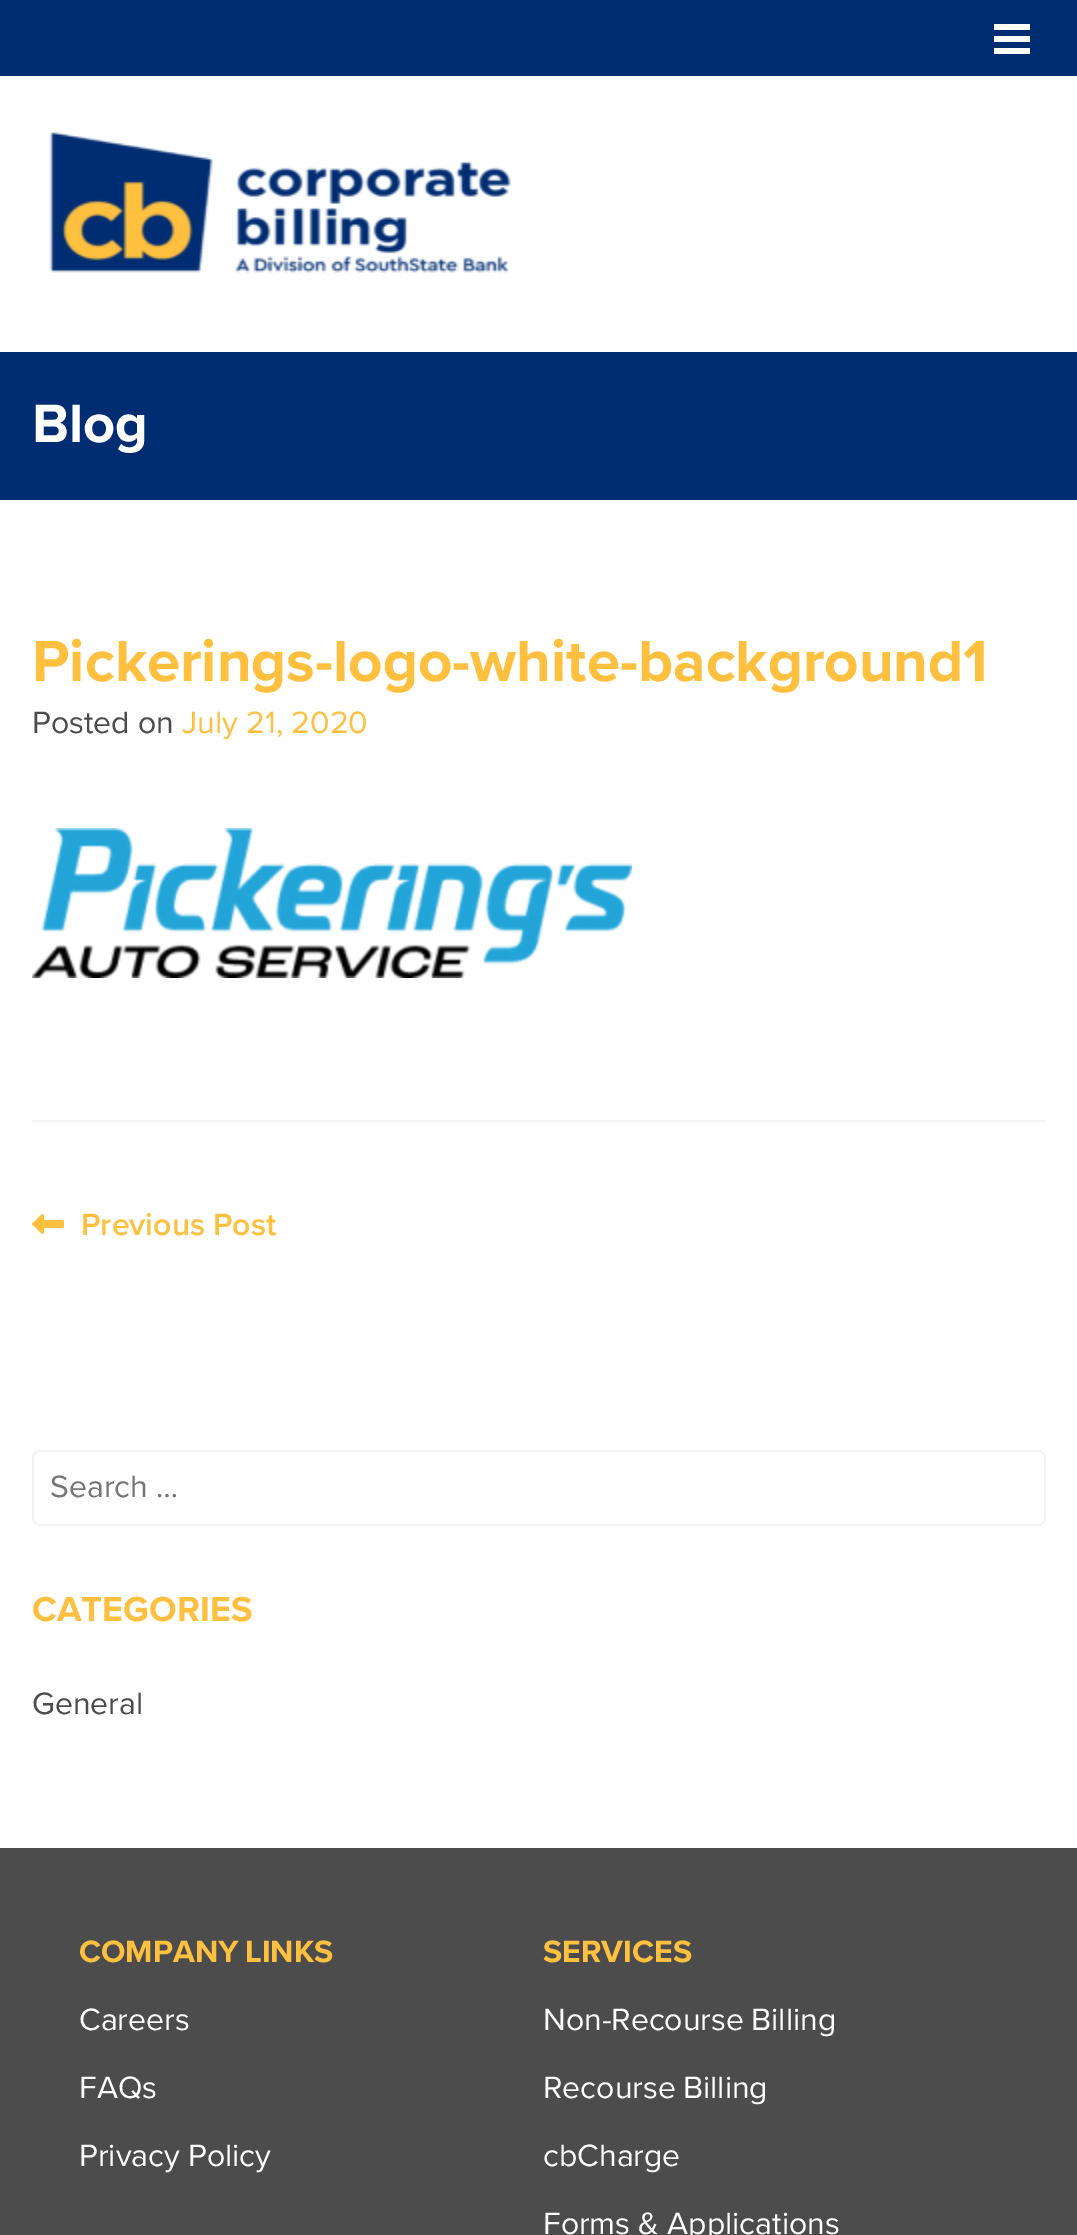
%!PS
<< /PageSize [1077 2235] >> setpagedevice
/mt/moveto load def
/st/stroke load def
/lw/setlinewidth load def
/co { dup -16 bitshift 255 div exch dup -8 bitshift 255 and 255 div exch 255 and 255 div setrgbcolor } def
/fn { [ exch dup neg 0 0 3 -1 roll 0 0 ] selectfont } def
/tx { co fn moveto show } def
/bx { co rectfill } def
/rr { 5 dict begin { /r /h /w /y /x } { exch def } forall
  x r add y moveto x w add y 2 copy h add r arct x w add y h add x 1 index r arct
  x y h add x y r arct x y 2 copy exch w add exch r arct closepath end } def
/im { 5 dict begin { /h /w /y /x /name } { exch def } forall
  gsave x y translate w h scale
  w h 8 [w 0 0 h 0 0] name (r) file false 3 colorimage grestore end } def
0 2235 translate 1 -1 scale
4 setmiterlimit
0 0 1077 2235 16#FFFFFF bx
0 0 1077 76 16#002D72 bx
994 24 36 6 16#FFFFFF bx
994 48 36 6 16#FFFFFF bx
994 36 36 6 16#FFFFFF bx
(media/1.raw) 49 132 462 141 im
0 352 1077 148 16#002D72 bx
32 1120 1014 2 16#F3F3F3 bx
(media/2.raw) 32 828 600 150 im
(media/3.raw) 32 1214 32 20 im
2 lw
33 1451 1012 74 7 rr st
0 1848 1077 387 16#4C4C4C bx
(Blog) 32 442 /ProximaNova-Bold 56 16#FFFFFF tx
(Pickerings-logo-white-background1) 32 681 /ProximaNova-Bold 60 16#FFBF3F tx
(Posted on) 32 733 /ProximaNova-Regular 32 16#4C4C4C tx
(July 21, 2020) 182 733 /ProximaNova-Regular 32 16#FFBF3F tx
(Previous Post) 81 1235 /ProximaNova-SemiBold 32 16#FFBF3F tx
(Search …) 50 1497 /ProximaNova-Regular 32 16#757575 tx
(CATEGORIES) 32 1621 /ProximaNova-Bold 36 16#FFBF3F tx
(General) 32 1714 /ProximaNova-Regular 32 16#4C4C4C tx
/ProximaNova-Bold 32 fn
16#FFBF3F co
79 1962 mt -2 0 32 (COMPANY LINKS) widthshow
(Careers) 79 2030 /ProximaNova-Regular 32 16#FFFFFF tx
(FAQs) 79 2098 /ProximaNova-Regular 32 16#FFFFFF tx
(Privacy Policy) 79 2166 /ProximaNova-Regular 32 16#FFFFFF tx
(SERVICES) 543 1962 /ProximaNova-Bold 32 16#FFBF3F tx
/ProximaNova-Regular 32 fn
16#FFFFFF co
543 2030 mt -1 0 32 (Non-Recourse Billing) widthshow
543 2098 mt -1 0 32 (Recourse Billing) widthshow
(cbCharge) 543 2166 /ProximaNova-Regular 32 16#FFFFFF tx
(Forms & Applications) 543 2234 /ProximaNova-Regular 32 16#FFFFFF tx
showpage
